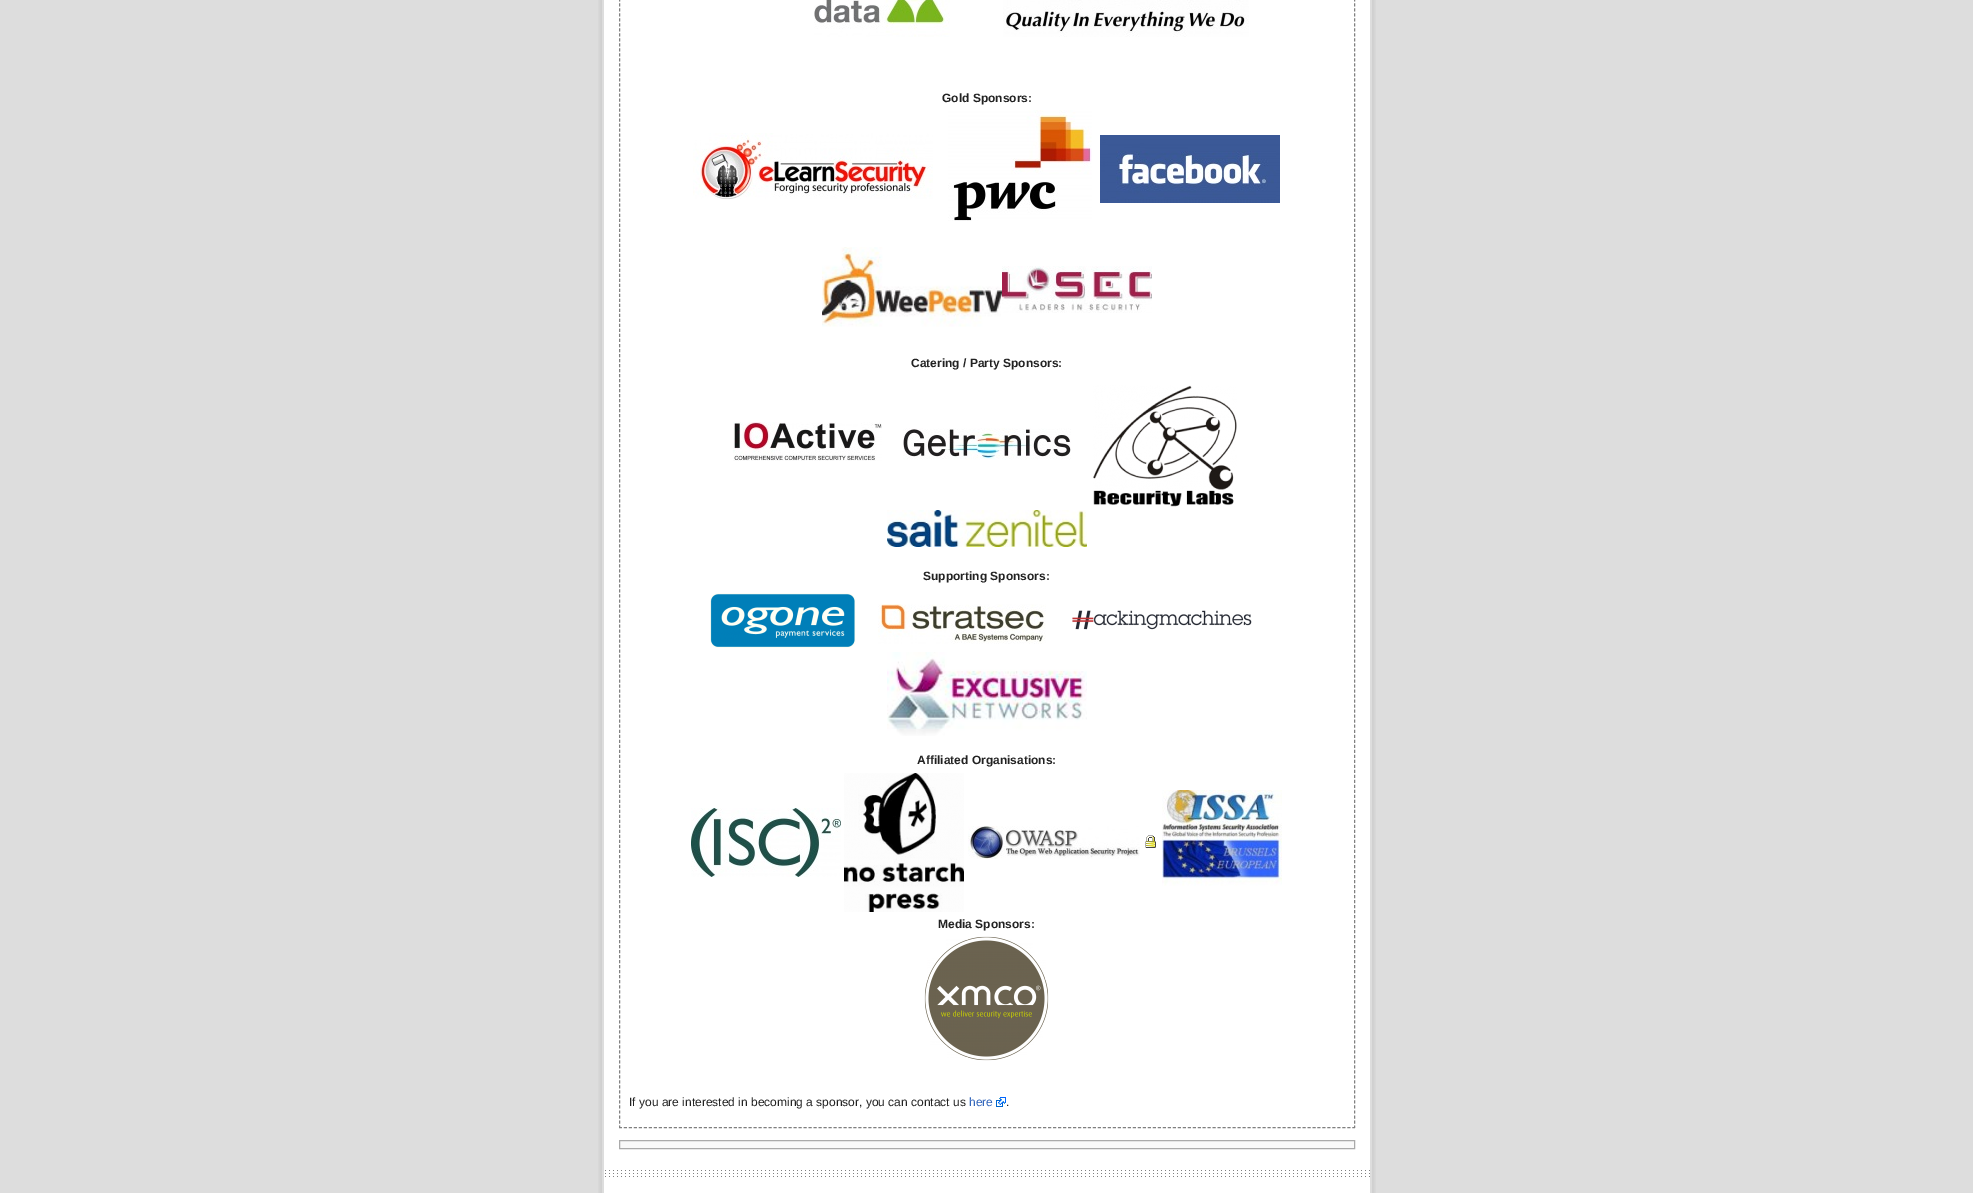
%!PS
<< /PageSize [1973 1193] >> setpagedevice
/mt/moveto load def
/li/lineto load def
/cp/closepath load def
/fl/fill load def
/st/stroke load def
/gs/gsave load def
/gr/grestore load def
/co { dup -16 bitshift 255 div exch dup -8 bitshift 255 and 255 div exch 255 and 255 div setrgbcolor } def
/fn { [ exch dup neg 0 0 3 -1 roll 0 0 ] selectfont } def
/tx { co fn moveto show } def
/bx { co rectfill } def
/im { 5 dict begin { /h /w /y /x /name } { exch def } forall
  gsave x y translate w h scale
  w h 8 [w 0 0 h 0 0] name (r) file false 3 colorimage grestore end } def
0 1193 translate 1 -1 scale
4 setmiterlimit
0 0 1973 1193 16#DDDDDD bx
(media/1.raw) 598 0 4 1193 im
(media/2.raw) 1372 0 4 1193 im
604 0 766 1193 16#FFFFFF bx
16#808080 co
[3 2.01] 0 setdash
1354.5 -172 mt 1354.5 1128 li st
[3 1.99] 0 setdash
619 1127.5 mt 1355 1127.5 li st
[3 2.01] 0 setdash
619.5 -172 mt 619.5 1128 li st
(media/3.raw) 814 0 136 37 im
(media/4.raw) 1003 0 246 37 im
(media/5.raw) 693 133 240 66 im
(media/6.raw) 948 110 144 111 im
(media/7.raw) 1100 135 180 68 im
(media/8.raw) 822 247 180 80 im
(media/9.raw) 1002 266 150 47 im
(media/10.raw) 733 422 149 39 im
(media/11.raw) 903 428 168 32 im
(media/12.raw) 1093 385 144 122 im
(media/13.raw) 887 510 200 37 im
(media/14.raw) 710 593 146 55 im
(media/15.raw) 878 604 168 40 im
(media/16.raw) 1072 610 180 20 im
(media/17.raw) 887 652 200 84 im
(media/18.raw) 691 808 150 69 im
(media/19.raw) 844 773 120 139 im
(media/20.raw) 968 826 172 33 im
(media/21.raw) 1145 835 11 13 im
(media/22.raw) 1162 790 120 96 im
(media/23.raw) 924 936 125 125 im
(media/24.raw) 996 1097 10 10 im
16#F9F9F9 co
619.5 1140.5 mt 1354.5 1140.5 li 1354.5 1148.5 li 619.5 1148.5 li cp gs fl gr
16#AAAAAA co
[] 0 setdash
st
(media/25.raw) 605 1170 765 7 im
(Gold Sponsors:) 942 102 /LiberationSans-Bold 12 16#222222 tx
(Catering / Party Sponsors:) 911 367 /LiberationSans-Bold 12 16#222222 tx
(Supporting Sponsors:) 923 580 /LiberationSans-Bold 12 16#222222 tx
(Affiliated Organisations:) 917 764 /LiberationSans-Bold 12 16#222222 tx
(Media Sponsors:) 938 928 /LiberationSans-Bold 12 16#222222 tx
(If you are interested in becoming a sponsor, you can contact us) 629 1106 /LiberationSans-Regular 12 16#222222 tx
(here) 969 1106 /LiberationSans-Regular 12 16#3366BB tx
(.) 1006 1106 /LiberationSans-Regular 12 16#222222 tx
showpage
